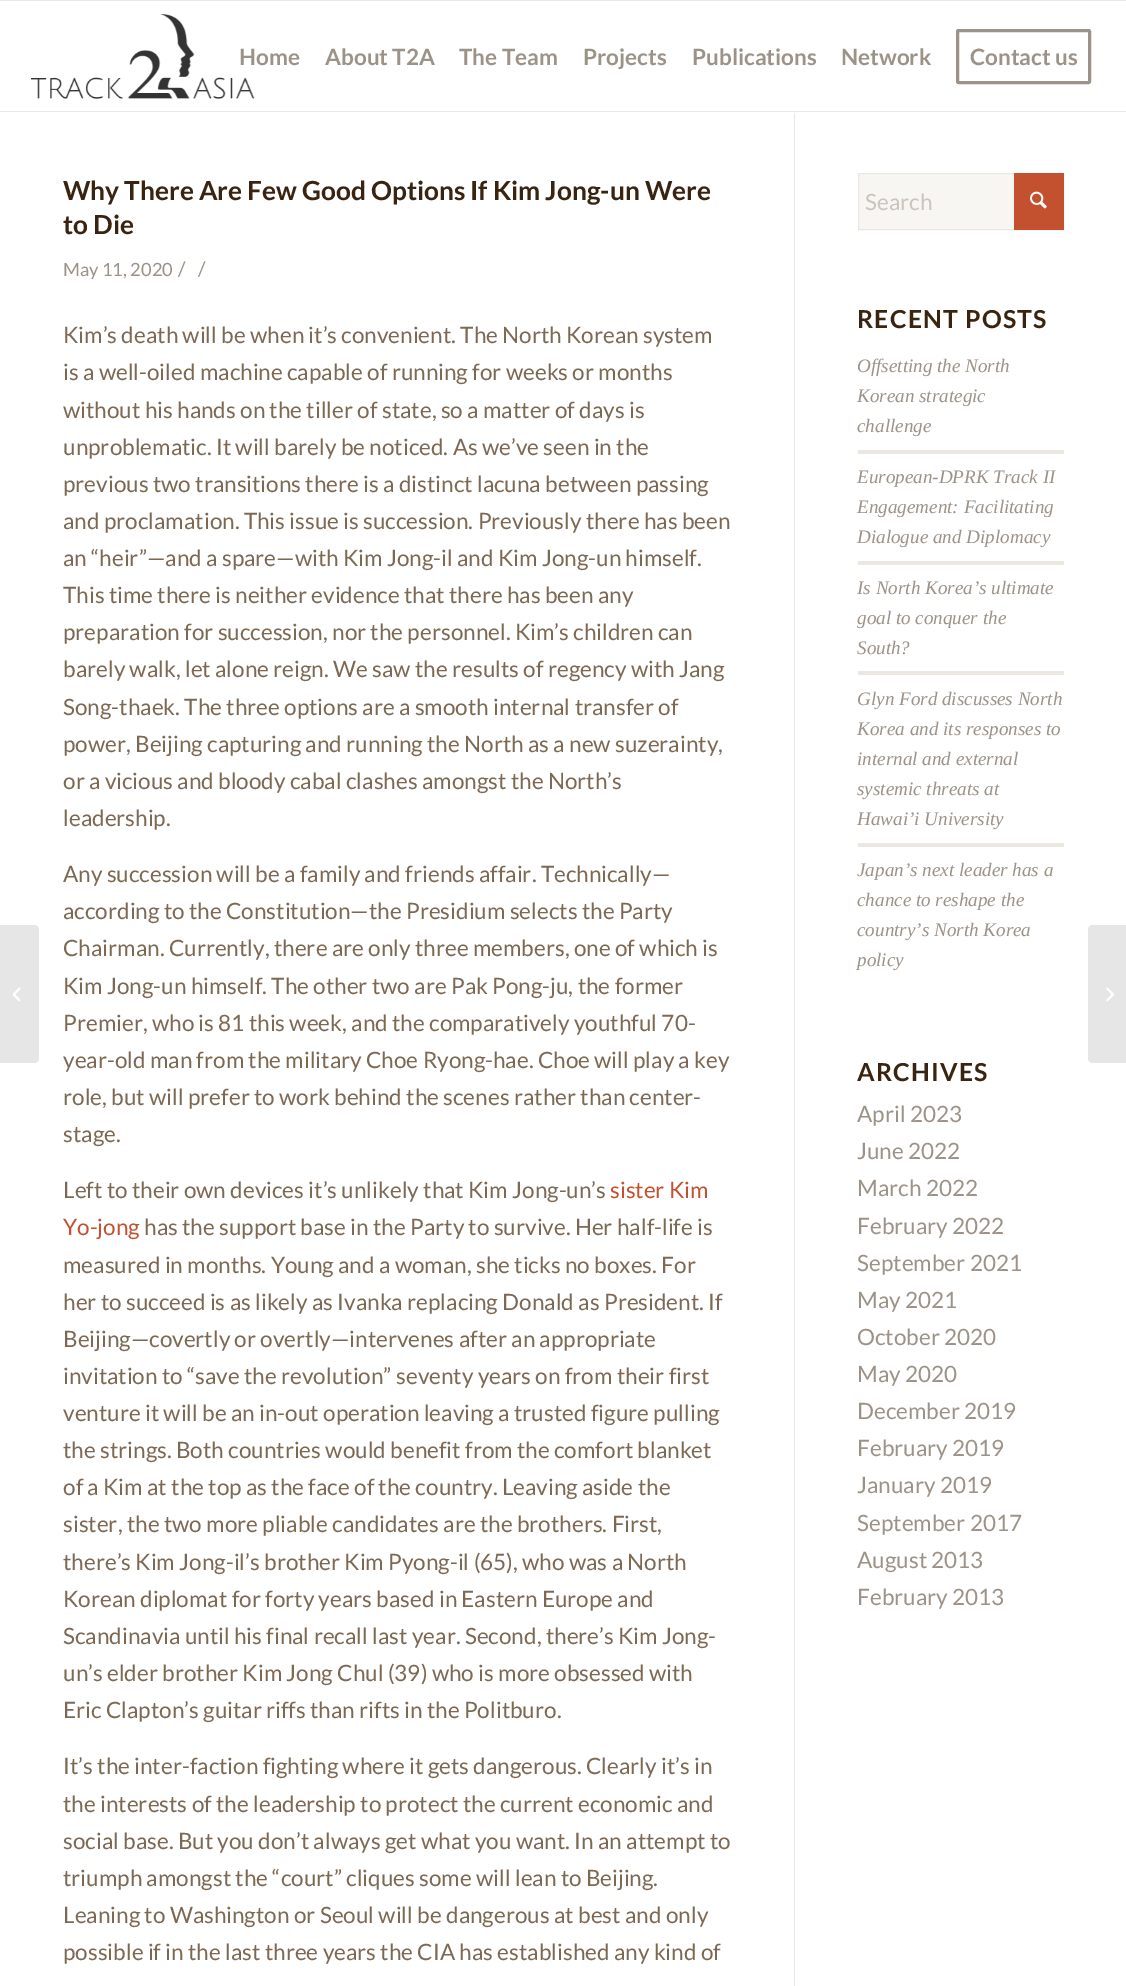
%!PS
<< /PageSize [1126 1986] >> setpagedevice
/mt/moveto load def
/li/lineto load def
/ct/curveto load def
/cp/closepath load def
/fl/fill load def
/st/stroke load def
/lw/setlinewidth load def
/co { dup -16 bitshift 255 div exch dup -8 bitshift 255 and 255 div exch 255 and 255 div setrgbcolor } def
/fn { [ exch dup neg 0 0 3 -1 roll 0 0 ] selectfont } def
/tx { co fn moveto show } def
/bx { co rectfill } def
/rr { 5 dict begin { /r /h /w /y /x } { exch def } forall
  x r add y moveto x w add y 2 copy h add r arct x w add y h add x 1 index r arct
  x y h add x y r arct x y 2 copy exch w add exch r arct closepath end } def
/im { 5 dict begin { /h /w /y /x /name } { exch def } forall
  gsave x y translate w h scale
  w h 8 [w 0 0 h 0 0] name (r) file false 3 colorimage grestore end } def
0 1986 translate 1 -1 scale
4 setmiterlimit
0 0 1126 1986 16#FFFFFF bx
0 0 1126 1 16#EBE8E2 bx
794 110 1 1876 16#EBE8E2 bx
794 110 1 3 16#FFFFFF bx
0 111 1126 1 16#EBE8E2 bx
(media/1.raw) 31 14 224 85 im
16#9C9288 co
3 lw
957.5 30.5 132 52 1 rr st
16#E6E6E6 co
0 925 mt 34 925 li 37 925 39 927 39 930 ct 39 1058 li 39 1061 37 1063 34 1063 ct 0 1063 li cp fl
(media/2.raw) 12 987 9 15 im
859 174 155 55 16#F8F6F2 bx
16#EBE8E2 co
1 lw
858.5 173.5 205 56 rectstroke
1014 173 50 57 16#C3512F bx
(media/3.raw) 1030 191 17 18 im
858 450 206 4 16#EBE8E2 bx
858 561 206 4 16#EBE8E2 bx
858 671 206 4 16#EBE8E2 bx
858 843 206 4 16#EBE8E2 bx
16#E6E6E6 co
1093 925 mt 1126 925 li 1126 1063 li 1093 1063 li 1090 1063 1088 1061 1088 1058 ct 1088 930 li 1088 927 1090 925 1093 925 ct cp fl
(media/4.raw) 1106 987 8 15 im
(Home) 239 65 /Lato-Bold 22.5 16#9C9288 tx
(About T2A) 325 65 /Lato-Bold 22.5 16#9C9288 tx
(The Team) 459 65 /Lato-Bold 22.5 16#9C9288 tx
(Projects) 583 65 /Lato-Bold 22.5 16#9C9288 tx
(Publications) 692 65 /Lato-Bold 22.5 16#9C9288 tx
(Network) 841 65 /Lato-Bold 22.5 16#9C9288 tx
(Contact us) 970 65 /Lato-Bold 22.5 16#9C9288 tx
(Why There Are Few Good Options If Kim Jong-un Were) 63 200 /Lato-Bold 26.25 16#382410 tx
(to Die) 63 234 /Lato-Bold 26.25 16#382410 tx
(May 11, 2020) 63 276 /Lato-Regular 18.25 16#9C9288 tx
(/) 178 276 /Lato-Regular 20 16#9C9288 tx
(/) 198 276 /Lato-Regular 20 16#9C9288 tx
(Kim’s death will be when it’s convenient. The North Korean system) 63 343 /Lato-Regular 22.5 16#7C6853 tx
(is a well-oiled machine capable of running for weeks or months) 63 380 /Lato-Regular 22.5 16#7C6853 tx
(without his hands on the tiller of state, so a matter of days is) 63 418 /Lato-Regular 22.5 16#7C6853 tx
(unproblematic. It will barely be noticed. As we’ve seen in the) 63 455 /Lato-Regular 22.5 16#7C6853 tx
(previous two transitions there is a distinct lacuna between passing) 63 492 /Lato-Regular 22.5 16#7C6853 tx
(and proclamation. This issue is succession. Previously there has been) 63 529 /Lato-Regular 22.5 16#7C6853 tx
(an “heir”—and a spare—with Kim Jong-il and Kim Jong-un himself.) 63 566 /Lato-Regular 22.5 16#7C6853 tx
(This time there is neither evidence that there has been any) 63 603 /Lato-Regular 22.5 16#7C6853 tx
(preparation for succession, nor the personnel. Kim’s children can) 63 640 /Lato-Regular 22.5 16#7C6853 tx
(barely walk, let alone reign. We saw the results of regency with Jang) 63 677 /Lato-Regular 22.5 16#7C6853 tx
(Song-thaek. The three options are a smooth internal transfer of) 63 715 /Lato-Regular 22.5 16#7C6853 tx
(power, Beijing capturing and running the North as a new suzerainty,) 63 752 /Lato-Regular 22.5 16#7C6853 tx
(or a vicious and bloody cabal clashes amongst the North’s) 63 789 /Lato-Regular 22.5 16#7C6853 tx
(leadership.) 63 826 /Lato-Regular 22.5 16#7C6853 tx
(Any succession will be a family and friends affair. Technically—) 63 882 /Lato-Regular 22.5 16#7C6853 tx
(according to the Constitution—the Presidium selects the Party) 63 919 /Lato-Regular 22.5 16#7C6853 tx
(Chairman. Currently, there are only three members, one of which is) 63 956 /Lato-Regular 22.5 16#7C6853 tx
(Kim Jong-un himself. The other two are Pak Pong-ju, the former) 63 994 /Lato-Regular 22.5 16#7C6853 tx
(Premier, who is 81 this week, and the comparatively youthful 70-) 63 1031 /Lato-Regular 22.5 16#7C6853 tx
(year-old man from the military Choe Ryong-hae. Choe will play a key) 63 1068 /Lato-Regular 22.5 16#7C6853 tx
(role, but will prefer to work behind the scenes rather than center-) 63 1105 /Lato-Regular 22.5 16#7C6853 tx
(stage.) 63 1142 /Lato-Regular 22.5 16#7C6853 tx
(Left to their own devices it’s unlikely that Kim Jong-un’s) 63 1198 /Lato-Regular 22.5 16#7C6853 tx
(sister Kim) 610 1198 /Lato-Regular 22.5 16#C3512F tx
(Yo-jong) 63 1235 /Lato-Regular 22.5 16#C3512F tx
(has the support base in the Party to survive. Her half-life is) 144 1235 /Lato-Regular 22.5 16#7C6853 tx
(measured in months. Young and a woman, she ticks no boxes. For) 63 1273 /Lato-Regular 22.5 16#7C6853 tx
(her to succeed is as likely as Ivanka replacing Donald as President. If) 63 1310 /Lato-Regular 22.5 16#7C6853 tx
(Beijing—covertly or overtly—intervenes after an appropriate) 63 1347 /Lato-Regular 22.5 16#7C6853 tx
(invitation to “save the revolution” seventy years on from their first) 63 1384 /Lato-Regular 22.5 16#7C6853 tx
(venture it will be an in-out operation leaving a trusted figure pulling) 63 1421 /Lato-Regular 22.5 16#7C6853 tx
(the strings. Both countries would benefit from the comfort blanket) 63 1458 /Lato-Regular 22.5 16#7C6853 tx
(of a Kim at the top as the face of the country. Leaving aside the) 63 1495 /Lato-Regular 22.5 16#7C6853 tx
(sister, the two more pliable candidates are the brothers. First,) 63 1532 /Lato-Regular 22.5 16#7C6853 tx
(there’s Kim Jong-il’s brother Kim Pyong-il \(65\), who was a North) 63 1570 /Lato-Regular 22.5 16#7C6853 tx
(Korean diplomat for forty years based in Eastern Europe and) 63 1607 /Lato-Regular 22.5 16#7C6853 tx
(Scandinavia until his final recall last year. Second, there’s Kim Jong-) 63 1644 /Lato-Regular 22.5 16#7C6853 tx
(un’s elder brother Kim Jong Chul \(39\) who is more obsessed with) 63 1681 /Lato-Regular 22.5 16#7C6853 tx
(Eric Clapton’s guitar riffs than rifts in the Politburo.) 63 1718 /Lato-Regular 22.5 16#7C6853 tx
(It’s the inter-faction fighting where it gets dangerous. Clearly it’s in) 63 1774 /Lato-Regular 22.5 16#7C6853 tx
(the interests of the leadership to protect the current economic and) 63 1812 /Lato-Regular 22.5 16#7C6853 tx
(social base. But you don’t always get what you want. In an attempt to) 63 1849 /Lato-Regular 22.5 16#7C6853 tx
(triumph amongst the “court” cliques some will lean to Beijing.) 63 1886 /Lato-Regular 22.5 16#7C6853 tx
(Leaning to Washington or Seoul will be dangerous at best and only) 63 1923 /Lato-Regular 22.5 16#7C6853 tx
(possible if in the last three years the CIA has established any kind of) 63 1960 /Lato-Regular 22.5 16#7C6853 tx
(Search) 865 210 /Lato-Regular 22.5 16#CAC4BD tx
/Lato-Bold 24.75 fn
16#382410 co
857 328 mt 1.25 0 (RECENT POSTS) ashow
(Offsetting the North) 857 372 /LiberationSerif-Italic 19.1 16#9C9288 tx
(Korean strategic) 857 402 /LiberationSerif-Italic 19.1 16#9C9288 tx
(challenge) 857 432 /LiberationSerif-Italic 19.1 16#9C9288 tx
(European-DPRK Track II) 857 483 /LiberationSerif-Italic 19.1 16#9C9288 tx
(Engagement: Facilitating) 857 513 /LiberationSerif-Italic 19.1 16#9C9288 tx
(Dialogue and Diplomacy) 857 543 /LiberationSerif-Italic 19.1 16#9C9288 tx
(Is North Korea’s ultimate) 857 594 /LiberationSerif-Italic 19.1 16#9C9288 tx
(goal to conquer the) 857 624 /LiberationSerif-Italic 19.1 16#9C9288 tx
(South?) 857 654 /LiberationSerif-Italic 19.1 16#9C9288 tx
(Glyn Ford discusses North) 857 705 /LiberationSerif-Italic 19.1 16#9C9288 tx
(Korea and its responses to) 857 735 /LiberationSerif-Italic 19.1 16#9C9288 tx
(internal and external) 857 765 /LiberationSerif-Italic 19.1 16#9C9288 tx
(systemic threats at) 857 795 /LiberationSerif-Italic 19.1 16#9C9288 tx
(Hawai’i University) 857 825 /LiberationSerif-Italic 19.1 16#9C9288 tx
(Japan’s next leader has a) 857 876 /LiberationSerif-Italic 19.1 16#9C9288 tx
(chance to reshape the) 857 906 /LiberationSerif-Italic 19.1 16#9C9288 tx
(country’s North Korea) 857 936 /LiberationSerif-Italic 19.1 16#9C9288 tx
(policy) 857 966 /LiberationSerif-Italic 19.1 16#9C9288 tx
/Lato-Bold 24.75 fn
16#382410 co
857 1081 mt 1.25 0 (ARCHIVES) ashow
(April 2023) 857 1122 /Lato-Regular 22.5 16#9C9288 tx
(June 2022) 857 1159 /Lato-Regular 22.5 16#9C9288 tx
(March 2022) 857 1196 /Lato-Regular 22.5 16#9C9288 tx
(February 2022) 857 1234 /Lato-Regular 22.5 16#9C9288 tx
(September 2021) 857 1271 /Lato-Regular 22.5 16#9C9288 tx
(May 2021) 857 1308 /Lato-Regular 22.5 16#9C9288 tx
(October 2020) 857 1345 /Lato-Regular 22.5 16#9C9288 tx
(May 2020) 857 1382 /Lato-Regular 22.5 16#9C9288 tx
(December 2019) 857 1419 /Lato-Regular 22.5 16#9C9288 tx
(February 2019) 857 1456 /Lato-Regular 22.5 16#9C9288 tx
(January 2019) 857 1493 /Lato-Regular 22.5 16#9C9288 tx
(September 2017) 857 1531 /Lato-Regular 22.5 16#9C9288 tx
(August 2013) 857 1568 /Lato-Regular 22.5 16#9C9288 tx
(February 2013) 857 1605 /Lato-Regular 22.5 16#9C9288 tx
showpage
